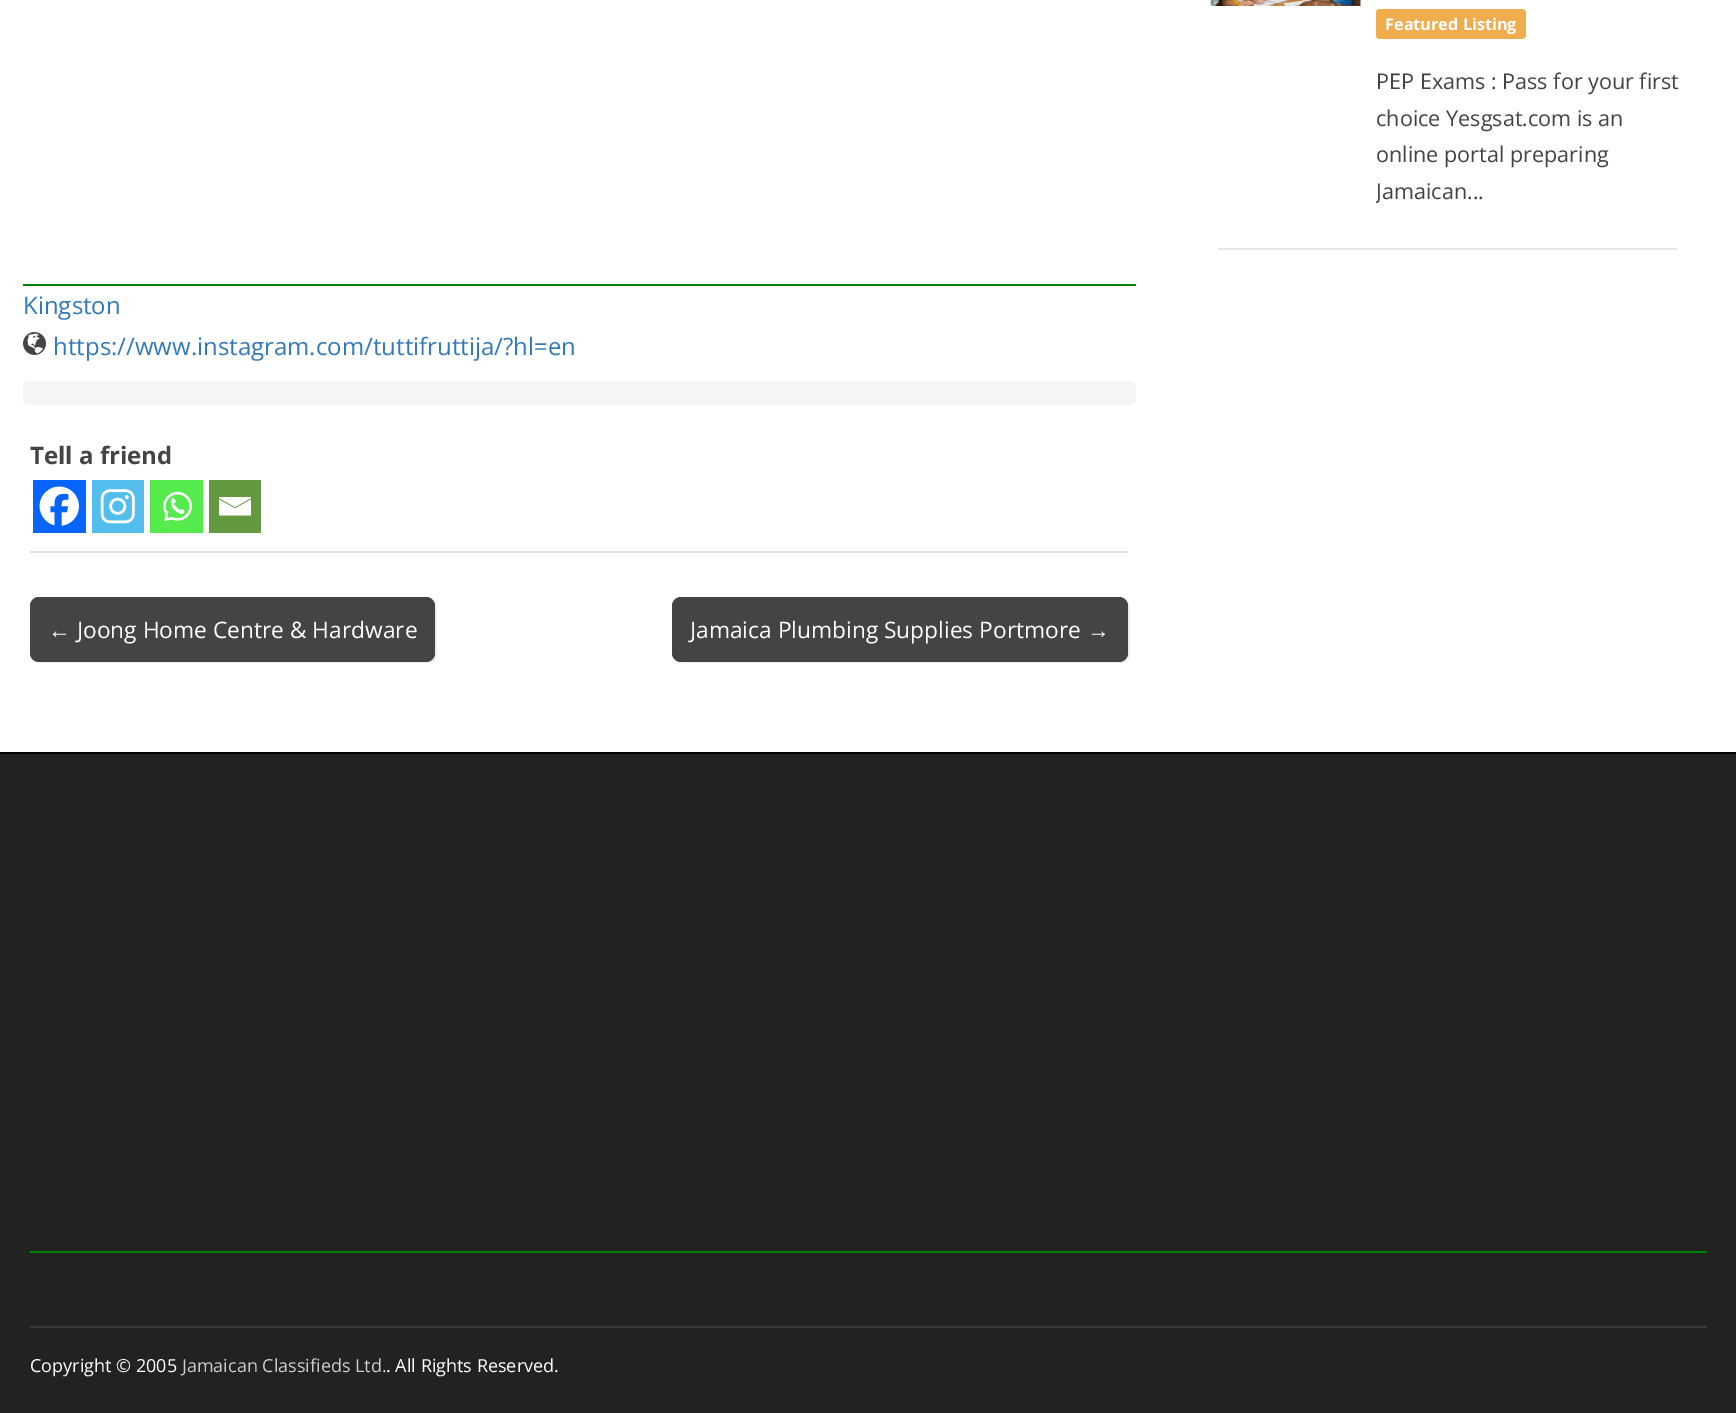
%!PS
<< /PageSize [1736 1413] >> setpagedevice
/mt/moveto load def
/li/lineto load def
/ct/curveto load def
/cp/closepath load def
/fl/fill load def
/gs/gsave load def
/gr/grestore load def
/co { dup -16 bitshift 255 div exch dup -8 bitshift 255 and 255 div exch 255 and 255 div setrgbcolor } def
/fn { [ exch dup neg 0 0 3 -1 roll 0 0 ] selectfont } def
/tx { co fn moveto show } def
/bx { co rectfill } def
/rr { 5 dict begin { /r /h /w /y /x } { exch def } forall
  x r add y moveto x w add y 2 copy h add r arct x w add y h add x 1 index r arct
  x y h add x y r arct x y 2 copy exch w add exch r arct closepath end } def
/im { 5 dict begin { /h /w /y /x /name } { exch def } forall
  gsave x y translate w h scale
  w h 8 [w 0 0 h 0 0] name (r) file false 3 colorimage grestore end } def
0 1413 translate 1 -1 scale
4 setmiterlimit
0 0 1736 1413 16#FFFFFF bx
(media/1.raw) 1210 0 151 6 im
16#F0AD4E co
1376 9 150 30 4 rr fl
1218 248 459 2 16#E5E5E5 bx
30 551 1098 2 16#E2E2E2 bx
23 284 1113 2 16#008000 bx
(media/2.raw) 23 332 23 23 im
16#F5F5F5 co
23 381 1113 24 6 rr fl
33 480 53 53 16#0765FE bx
(media/3.raw) 39 486 40 40 im
92 480 52 53 16#53BEEE bx
(media/4.raw) 100 489 35 35 im
150 480 53 53 16#55EB4C bx
(media/5.raw) 163 491 29 30 im
209 480 52 53 16#649A3F bx
16#FFFFFF co
217.5 497 mt 251 497 li 251 498 li 235 507 li 219 498 li 219 497 li 219 499.5 mt 235 508.5 li 251 499.5 li 251 515.5 li 219 515.5 li 219 499.5 li fl
16#EEEEEE co
35 660 mt 36 662 39 663 41 663 ct 428 663 li 433 663 437 659 437 654 ct 437 608 li 437 605 436 602 433 601 ct 434 602 435 604 435 606 ct 435 652 li 435 657 431 662 426 662 ct 39 662 li 37 662 36 661 35 660 ct cp fl
16#444444 co
30 597 405 65 9 rr fl
16#EEEEEE co
677 660 mt 678 662 681 663 683 663 ct 1121 663 li 1126 663 1130 659 1130 654 ct 1130 608 li 1130 605 1129 602 1126 601 ct 1127 602 1128 604 1128 606 ct 1128 652 li 1128 657 1124 662 1119 662 ct 681 662 li 679 662 678 661 677 660 ct cp fl
16#444444 co
672 597 456 65 9 rr fl
0 754 1736 659 16#222222 bx
0 752 1736 2 16#000000 bx
30 1251 1677 2 16#008000 bx
30 1326 1677 2 16#383838 bx
(Featured Listing) 1385 30 /OpenSans-Bold 16.25 16#FFFFFF tx
(PEP Exams : Pass for your first) 1376 89 /OpenSans-Regular 21.6 16#444444 tx
(choice Yesgsat.com is an) 1376 126 /OpenSans-Regular 21.6 16#444444 tx
(online portal preparing) 1376 162 /OpenSans-Regular 21.6 16#444444 tx
gs
1376 0 309 233 rectclip
(Jamaican...) 1376 199 /OpenSans-Regular 21.6 16#444444 tx
gr
(Kingston) 23 314 /OpenSans-Regular 24 16#337AB7 tx
(https://www.instagram.com/tuttifruttija/?hl=en) 53 355 /OpenSans-Regular 24 16#337AB7 tx
(Tell a friend) 30 464 /OpenSans-Bold 24 16#444444 tx
(←) 48 638 /LiberationSans-Regular 22.75 16#FFFFFF tx
(Joong Home Centre & Hardware) 77 638 /OpenSans-Regular 22.75 16#FFFFFF tx
(Jamaica Plumbing Supplies Portmore) 690 638 /OpenSans-Regular 22.75 16#FFFFFF tx
(→) 1087 638 /LiberationSans-Regular 22.75 16#FFFFFF tx
(Copyright © 2005) 30 1372 /OpenSans-Regular 18 16#FFFFFF tx
(Jamaican Classifieds Ltd.) 182 1372 /OpenSans-Regular 18 16#CCCCCC tx
(. All Rights Reserved.) 386 1372 /OpenSans-Regular 18 16#FFFFFF tx
showpage
